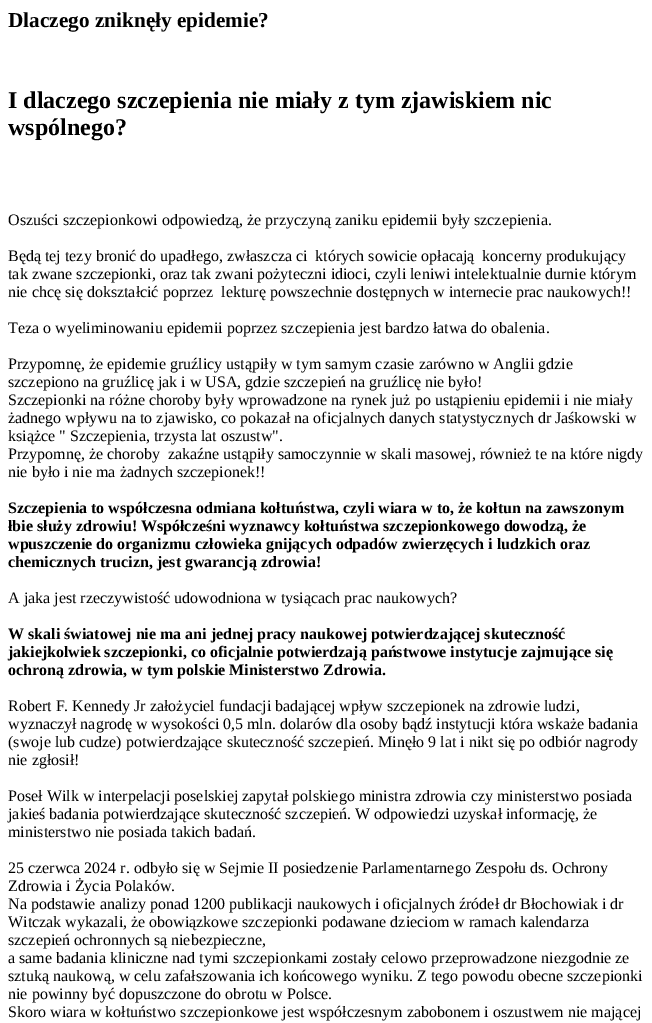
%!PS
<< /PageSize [652 1023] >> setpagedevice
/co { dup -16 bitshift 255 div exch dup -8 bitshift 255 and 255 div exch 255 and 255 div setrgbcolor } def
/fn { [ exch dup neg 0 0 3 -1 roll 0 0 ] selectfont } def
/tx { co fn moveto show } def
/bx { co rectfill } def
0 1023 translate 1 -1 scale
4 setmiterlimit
0 0 652 1023 16#FFFFFF bx
(Dlaczego zniknęły epidemie?) 8 27 /LiberationSerif-Bold 21.25 16#000000 tx
(I dlaczego szczepienia nie miały z tym zjawiskiem nic) 8 108 /LiberationSerif-Bold 24 16#000000 tx
(wspólnego?) 8 135 /LiberationSerif-Bold 24 16#000000 tx
(Oszuści szczepionkowi odpowiedzą, że przyczyną zaniku epidemii były szczepienia.) 8 225 /LiberationSerif-Regular 16 16#000000 tx
(Będą tej tezy bronić do upadłego, zwłaszcza ci  których sowicie opłacają  koncerny produkujący) 8 261 /LiberationSerif-Regular 16 16#000000 tx
(tak zwane szczepionki, oraz tak zwani pożyteczni idioci, czyli leniwi intelektualnie durnie którym) 8 279 /LiberationSerif-Regular 16 16#000000 tx
(nie chcę się dokształcić poprzez  lekturę powszechnie dostępnych w internecie prac naukowych!!) 8 297 /LiberationSerif-Regular 16 16#000000 tx
(Teza o wyeliminowaniu epidemii poprzez szczepienia jest bardzo łatwa do obalenia.) 8 333 /LiberationSerif-Regular 16 16#000000 tx
(Przypomnę, że epidemie gruźlicy ustąpiły w tym samym czasie zarówno w Anglii gdzie) 8 369 /LiberationSerif-Regular 16 16#000000 tx
(szczepiono na gruźlicę jak i w USA, gdzie szczepień na gruźlicę nie było!) 8 387 /LiberationSerif-Regular 16 16#000000 tx
(Szczepionki na różne choroby były wprowadzone na rynek już po ustąpieniu epidemii i nie miały) 8 405 /LiberationSerif-Regular 16 16#000000 tx
(żadnego wpływu na to zjawisko, co pokazał na oficjalnych danych statystycznych dr Jaśkowski w) 8 423 /LiberationSerif-Regular 16 16#000000 tx
(książce " Szczepienia, trzysta lat oszustw".) 8 441 /LiberationSerif-Regular 16 16#000000 tx
(Przypomnę, że choroby  zakaźne ustąpiły samoczynnie w skali masowej, również te na które nigdy) 8 459 /LiberationSerif-Regular 16 16#000000 tx
(nie było i nie ma żadnych szczepionek!!) 8 477 /LiberationSerif-Regular 16 16#000000 tx
(Szczepienia to współczesna odmiana kołtuństwa, czyli wiara w to, że kołtun na zawszonym) 8 513 /LiberationSerif-Bold 16 16#000000 tx
(łbie służy zdrowiu! Współcześni wyznawcy kołtuństwa szczepionkowego dowodzą, że) 8 531 /LiberationSerif-Bold 16 16#000000 tx
(wpuszczenie do organizmu człowieka gnijących odpadów zwierzęcych i ludzkich oraz) 8 549 /LiberationSerif-Bold 16 16#000000 tx
(chemicznych trucizn, jest gwarancją zdrowia!) 8 567 /LiberationSerif-Bold 16 16#000000 tx
(A jaka jest rzeczywistość udowodniona w tysiącach prac naukowych?) 8 603 /LiberationSerif-Regular 16 16#000000 tx
(W skali światowej nie ma ani jednej pracy naukowej potwierdzającej skuteczność) 8 639 /LiberationSerif-Bold 16 16#000000 tx
(jakiejkolwiek szczepionki, co oficjalnie potwierdzają państwowe instytucje zajmujące się) 8 657 /LiberationSerif-Bold 16 16#000000 tx
(ochroną zdrowia, w tym polskie Ministerstwo Zdrowia.) 8 675 /LiberationSerif-Bold 16 16#000000 tx
(Robert F. Kennedy Jr założyciel fundacji badającej wpływ szczepionek na zdrowie ludzi,) 8 711 /LiberationSerif-Regular 16 16#000000 tx
(wyznaczył nagrodę w wysokości 0,5 mln. dolarów dla osoby bądź instytucji która wskaże badania) 8 729 /LiberationSerif-Regular 16 16#000000 tx
(\(swoje lub cudze\) potwierdzające skuteczność szczepień. Minęło 9 lat i nikt się po odbiór nagrody) 8 747 /LiberationSerif-Regular 16 16#000000 tx
(nie zgłosił!) 8 765 /LiberationSerif-Regular 16 16#000000 tx
(Poseł Wilk w interpelacji poselskiej zapytał polskiego ministra zdrowia czy ministerstwo posiada) 8 801 /LiberationSerif-Regular 16 16#000000 tx
(jakieś badania potwierdzające skuteczność szczepień. W odpowiedzi uzyskał informację, że) 8 819 /LiberationSerif-Regular 16 16#000000 tx
(ministerstwo nie posiada takich badań.) 8 837 /LiberationSerif-Regular 16 16#000000 tx
(25 czerwca 2024 r. odbyło się w Sejmie II posiedzenie Parlamentarnego Zespołu ds. Ochrony) 8 873 /LiberationSerif-Regular 16 16#000000 tx
(Zdrowia i Życia Polaków.) 8 891 /LiberationSerif-Regular 16 16#000000 tx
(Na podstawie analizy ponad 1200 publikacji naukowych i oficjalnych źródeł dr Błochowiak i dr) 8 909 /LiberationSerif-Regular 16 16#000000 tx
(Witczak wykazali, że obowiązkowe szczepionki podawane dzieciom w ramach kalendarza) 8 927 /LiberationSerif-Regular 16 16#000000 tx
(szczepień ochronnych są niebezpieczne,) 8 945 /LiberationSerif-Regular 16 16#000000 tx
(a same badania kliniczne nad tymi szczepionkami zostały celowo przeprowadzone niezgodnie ze) 8 963 /LiberationSerif-Regular 16 16#000000 tx
(sztuką naukową, w celu zafałszowania ich końcowego wyniku. Z tego powodu obecne szczepionki) 8 981 /LiberationSerif-Regular 16 16#000000 tx
(nie powinny być dopuszczone do obrotu w Polsce.) 8 999 /LiberationSerif-Regular 16 16#000000 tx
(Skoro wiara w kołtuństwo szczepionkowe jest współczesnym zabobonem i oszustwem nie mającej) 8 1017 /LiberationSerif-Regular 16 16#000000 tx
showpage
